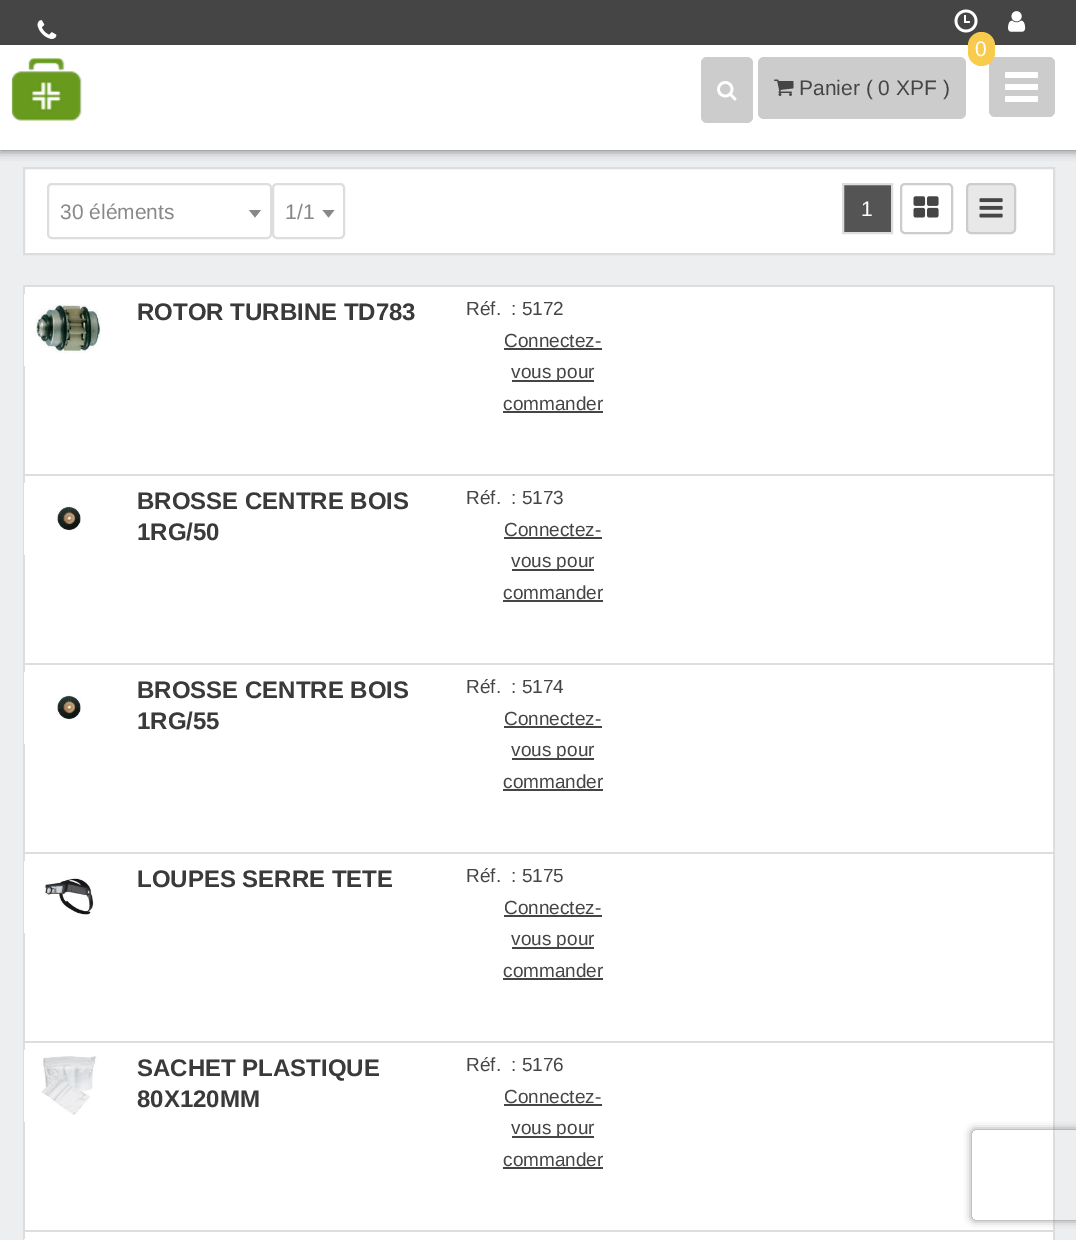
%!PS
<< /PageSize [1076 1240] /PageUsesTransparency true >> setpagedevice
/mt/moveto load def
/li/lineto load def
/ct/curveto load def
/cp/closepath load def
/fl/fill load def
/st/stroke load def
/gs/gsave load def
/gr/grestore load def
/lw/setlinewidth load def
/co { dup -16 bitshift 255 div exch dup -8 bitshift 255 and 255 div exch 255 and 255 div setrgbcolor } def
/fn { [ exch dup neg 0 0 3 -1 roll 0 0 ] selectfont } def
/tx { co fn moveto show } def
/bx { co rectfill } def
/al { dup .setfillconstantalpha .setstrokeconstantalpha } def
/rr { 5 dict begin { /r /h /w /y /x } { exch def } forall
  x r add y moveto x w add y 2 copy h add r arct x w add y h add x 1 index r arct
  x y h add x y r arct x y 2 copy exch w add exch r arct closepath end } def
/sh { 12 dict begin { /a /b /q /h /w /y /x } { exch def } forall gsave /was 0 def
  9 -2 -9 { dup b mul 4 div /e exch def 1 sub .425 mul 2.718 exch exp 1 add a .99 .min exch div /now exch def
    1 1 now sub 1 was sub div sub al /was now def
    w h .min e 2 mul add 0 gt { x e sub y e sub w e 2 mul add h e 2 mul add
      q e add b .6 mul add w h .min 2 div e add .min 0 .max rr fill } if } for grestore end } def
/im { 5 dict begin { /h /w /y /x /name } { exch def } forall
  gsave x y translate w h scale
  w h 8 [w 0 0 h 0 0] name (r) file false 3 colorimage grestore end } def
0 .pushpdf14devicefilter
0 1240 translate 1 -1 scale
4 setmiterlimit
0 0 1076 1240 16#EDEEF0 bx
16#000000 co
0 0 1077 150 0 5 .6 sh
0 0 1076 45 16#454545 bx
(media/1.raw) 37 20 20 19 im
(media/2.raw) 954 9 24 24 im
(media/3.raw) 1008 11 18 21 im
0 45 1076 105 16#FFFFFF bx
(media/4.raw) 11 58 71 63 im
16#CCCCCC co
701 57 52 66 6 rr fl
(media/5.raw) 717 81 20 20 im
758 57 208 62 6 rr fl
989 57 66 60 6 rr fl
16#F9CB4D co
968 32 27 34 13.5 rr fl
(media/6.raw) 774 79 20 17 im
16#FFFFFF co
1005 72 33 6 1.5 rr fl
1005 84 33 6 1.5 rr fl
1005 96 33 6 1.5 rr fl
24 168 mt 1054 168 li 1054 254 li 24 254 li cp gs fl gr
16#DDDDDD co
2 lw
st
48 184 223 54 4 rr st
16#888888 co
249 210 mt 261 210 li 255 217.5 li cp fl
16#DDDDDD co
273 184 71 54 4 rr st
16#888888 co
322.5 210 mt 334.5 210 li 328.5 217.5 li cp fl
16#545454 co
843 184 mt 892 184 li 892 233 li 843 233 li cp gs fl gr
16#DDDDDD co
st
16#CCCCCC co
901 184 51 49 4 rr st
(media/7.raw) 913 196 26 22 im
16#E8E8E8 co
967 184 48 49 4 rr gs fl gr
16#CCCCCC co
st
(media/8.raw) 979 198 24 20 im
25 287 1028 187 16#FFFFFF bx
23 285 1032 2 16#DDDDDD bx
1053 285 2 189 16#DDDDDD bx
23 285 2 189 16#DDDDDD bx
24 294 1 72 16#FFFFFF bx
(media/9.raw) 33 303 68 51 im
504 348 98 2 16#454545 bx
512 380 82 2 16#454545 bx
503 411 100 2 16#454545 bx
25 476 1028 187 16#FFFFFF bx
23 474 1032 2 16#DDDDDD bx
1053 474 2 189 16#DDDDDD bx
23 474 2 189 16#DDDDDD bx
24 483 1 72 16#FFFFFF bx
(media/10.raw) 57 506 24 25 im
504 537 98 2 16#454545 bx
512 569 82 2 16#454545 bx
503 600 100 2 16#454545 bx
25 665 1028 187 16#FFFFFF bx
23 663 1032 2 16#DDDDDD bx
1053 663 2 189 16#DDDDDD bx
23 663 2 189 16#DDDDDD bx
24 672 1 72 16#FFFFFF bx
(media/10.raw) 57 695 24 25 im
504 726 98 2 16#454545 bx
512 758 82 2 16#454545 bx
503 789 100 2 16#454545 bx
25 854 1028 187 16#FFFFFF bx
23 852 1032 2 16#DDDDDD bx
1053 852 2 189 16#DDDDDD bx
23 852 2 189 16#DDDDDD bx
24 861 1 72 16#FFFFFF bx
(media/11.raw) 44 877 50 38 im
504 915 98 2 16#454545 bx
512 947 82 2 16#454545 bx
503 978 100 2 16#454545 bx
25 1043 1028 187 16#FFFFFF bx
23 1041 1032 2 16#DDDDDD bx
1053 1041 2 189 16#DDDDDD bx
23 1041 2 189 16#DDDDDD bx
24 1050 1 72 16#FFFFFF bx
(media/12.raw) 42 1056 55 59 im
504 1104 98 2 16#454545 bx
512 1136 82 2 16#454545 bx
503 1167 100 2 16#454545 bx
24 1232 1029 8 16#FFFFFF bx
23 1230 1032 2 16#DDDDDD bx
1053 1230 2 10 16#DDDDDD bx
23 1230 2 10 16#DDDDDD bx
24 1239 1 1 16#FFFFFF bx
(media/13.raw) 38 1239 7 1 im
gs
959 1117 mt 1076 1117 li 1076 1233 li 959 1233 li cp 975 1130 mt 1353 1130 li 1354.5 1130 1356 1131.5 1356 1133 ct 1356 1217 li 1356 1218.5 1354.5 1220 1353 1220 ct 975 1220 li 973.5 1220 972 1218.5 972 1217 ct 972 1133 li 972 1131.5 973.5 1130 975 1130 ct cp eoclip newpath
16#808080 co
972 1130 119 90 3 4 1 sh
gr
(0) 975 56 /LiberationSans-Regular 21 16#FFFFFF tx
(Panier \( 0 XPF \)) 799 95 /LiberationSans-Regular 21 16#454545 tx
(30 éléments) 60 219 /LiberationSans-Regular 21 16#888888 tx
(1/1) 285 219 /LiberationSans-Regular 21 16#888888 tx
(1) 861 216 /LiberationSans-Regular 21 16#FFFFFF tx
(ROTOR TURBINE TD783) 137 320 /LiberationSans-Bold 24 16#3A3A3A tx
(Réf.) 466 315 /LiberationSans-Regular 19 16#454545 tx
(: 5172) 511 315 /LiberationSans-Regular 19 16#454545 tx
(Connectez-) 504 347 /LiberationSans-Regular 19 16#454545 tx
(vous pour) 511 378 /LiberationSans-Regular 19 16#454545 tx
(commander) 503 410 /LiberationSans-Regular 19 16#454545 tx
(BROSSE CENTRE BOIS) 137 509 /LiberationSans-Bold 24 16#3A3A3A tx
(1RG/50) 137 540 /LiberationSans-Bold 24 16#3A3A3A tx
(Réf.) 466 504 /LiberationSans-Regular 19 16#454545 tx
(: 5173) 511 504 /LiberationSans-Regular 19 16#454545 tx
(Connectez-) 504 536 /LiberationSans-Regular 19 16#454545 tx
(vous pour) 511 567 /LiberationSans-Regular 19 16#454545 tx
(commander) 503 599 /LiberationSans-Regular 19 16#454545 tx
(BROSSE CENTRE BOIS) 137 698 /LiberationSans-Bold 24 16#3A3A3A tx
(1RG/55) 137 729 /LiberationSans-Bold 24 16#3A3A3A tx
(Réf.) 466 693 /LiberationSans-Regular 19 16#454545 tx
(: 5174) 511 693 /LiberationSans-Regular 19 16#454545 tx
(Connectez-) 504 725 /LiberationSans-Regular 19 16#454545 tx
(vous pour) 511 756 /LiberationSans-Regular 19 16#454545 tx
(commander) 503 788 /LiberationSans-Regular 19 16#454545 tx
(LOUPES SERRE TETE) 137 887 /LiberationSans-Bold 24 16#3A3A3A tx
(Réf.) 466 882 /LiberationSans-Regular 19 16#454545 tx
(: 5175) 511 882 /LiberationSans-Regular 19 16#454545 tx
(Connectez-) 504 914 /LiberationSans-Regular 19 16#454545 tx
(vous pour) 511 945 /LiberationSans-Regular 19 16#454545 tx
(commander) 503 977 /LiberationSans-Regular 19 16#454545 tx
(SACHET PLASTIQUE) 137 1076 /LiberationSans-Bold 24 16#3A3A3A tx
(80X120MM) 137 1107 /LiberationSans-Bold 24 16#3A3A3A tx
(Réf.) 466 1071 /LiberationSans-Regular 19 16#454545 tx
(: 5176) 511 1071 /LiberationSans-Regular 19 16#454545 tx
(Connectez-) 504 1103 /LiberationSans-Regular 19 16#454545 tx
(vous pour) 511 1134 /LiberationSans-Regular 19 16#454545 tx
(commander) 503 1166 /LiberationSans-Regular 19 16#454545 tx
.poppdf14devicefilter showpage
